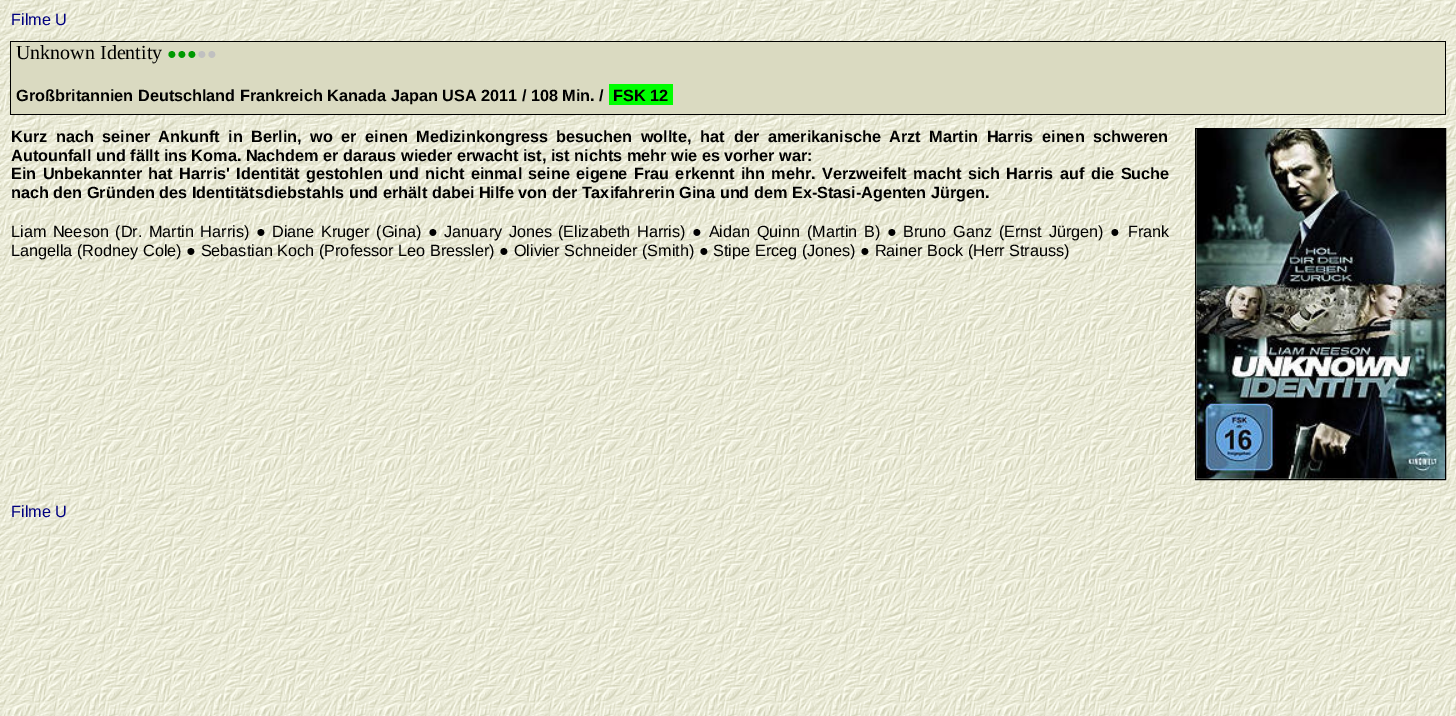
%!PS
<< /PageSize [1456 716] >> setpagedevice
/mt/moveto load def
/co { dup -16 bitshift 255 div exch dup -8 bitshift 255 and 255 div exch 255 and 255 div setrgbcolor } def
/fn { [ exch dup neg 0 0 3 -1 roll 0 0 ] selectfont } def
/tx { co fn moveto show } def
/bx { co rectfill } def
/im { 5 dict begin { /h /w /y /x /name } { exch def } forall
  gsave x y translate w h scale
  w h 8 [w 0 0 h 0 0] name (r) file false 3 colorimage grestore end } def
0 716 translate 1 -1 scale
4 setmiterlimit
0 0 1456 716 16#FFFFFF bx
(media/1.raw) 0 0 1456 716 im
11 42 1434 72 16#DADAC1 bx
10 41 1436 1 16#000000 bx
1445 64 1 51 16#000000 bx
1445 41 1 24 16#000000 bx
10 114 1436 1 16#000000 bx
10 64 1 51 16#000000 bx
10 41 1 24 16#000000 bx
609 84 64 21 16#00FF00 bx
16#000000 co
1195.5 128.5 250 351 rectstroke
(media/2.raw) 1196 128 249 351 im
(Filme U) 11 25 /LiberationSans-Regular 16.25 16#000080 tx
(Unknown Identity) 16 59 /LiberationSerif-Regular 20 16#000000 tx
(●●●) 167 59 /LiberationSerif-Regular 16.25 16#009900 tx
(●●) 197 59 /LiberationSerif-Regular 16.25 16#C0C0C0 tx
(Großbritannien Deutschland Frankreich Kanada Japan USA 2011 / 108 Min. /) 16 101 /LiberationSans-Bold 16.25 16#000000 tx
(FSK 12) 613 101 /LiberationSans-Bold 16.25 16#000000 tx
11 142 mt 4 0 32 (Kurz nach) widthshow
102 142 mt 4 0 32 (seiner Ankunft in Berlin, wo er einen Medizinkongress besuchen wollte, hat) widthshow
734 142 mt 4 0 32 (der amerikanische Arzt Martin Harris einen schweren) widthshow
(Autounfall und fällt ins Koma. Nachdem er daraus wieder erwacht ist, ist nichts mehr wie es vorher war:) 11 161 /LiberationSans-Bold 16.25 16#000000 tx
11 179 mt 1.9 0 32 (Ein Unbekannter hat Harris' Identität gestohlen und nicht einmal seine) widthshow
576 179 mt 1.9 0 32 (eigene Frau erkennt ihn mehr. Verzweifelt macht sich Harris auf die Suche) widthshow
(nach den Gründen des Identitätsdiebstahls und erhält dabei Hilfe von der Taxifahrerin Gina und dem Ex-Stasi-Agenten Jürgen.) 11 198 /LiberationSans-Bold 16.25 16#000000 tx
/LiberationSans-Regular 16.25 fn
11 237 mt 2 0 32 (Liam Neeson \(Dr. Martin Harris\) ● Diane Kruger \(Gina\) ● January Jones) widthshow
558 237 mt 2.1 0 32 (\(Elizabeth Harris\) ● Aidan Quinn \(Martin B\) ● Bruno Ganz \(Ernst Jürgen\) ●) widthshow
(Frank) 1128 237 /LiberationSans-Regular 16.25 16#000000 tx
(Langella \(Rodney Cole\) ● Sebastian Koch \(Professor Leo Bressler\) ● Olivier Schneider \(Smith\) ● Stipe Erceg \(Jones\) ● Rainer Bock \(Herr Strauss\)) 11 256 /LiberationSans-Regular 16.25 16#000000 tx
(Filme U) 11 517 /LiberationSans-Regular 16.25 16#000080 tx
showpage
